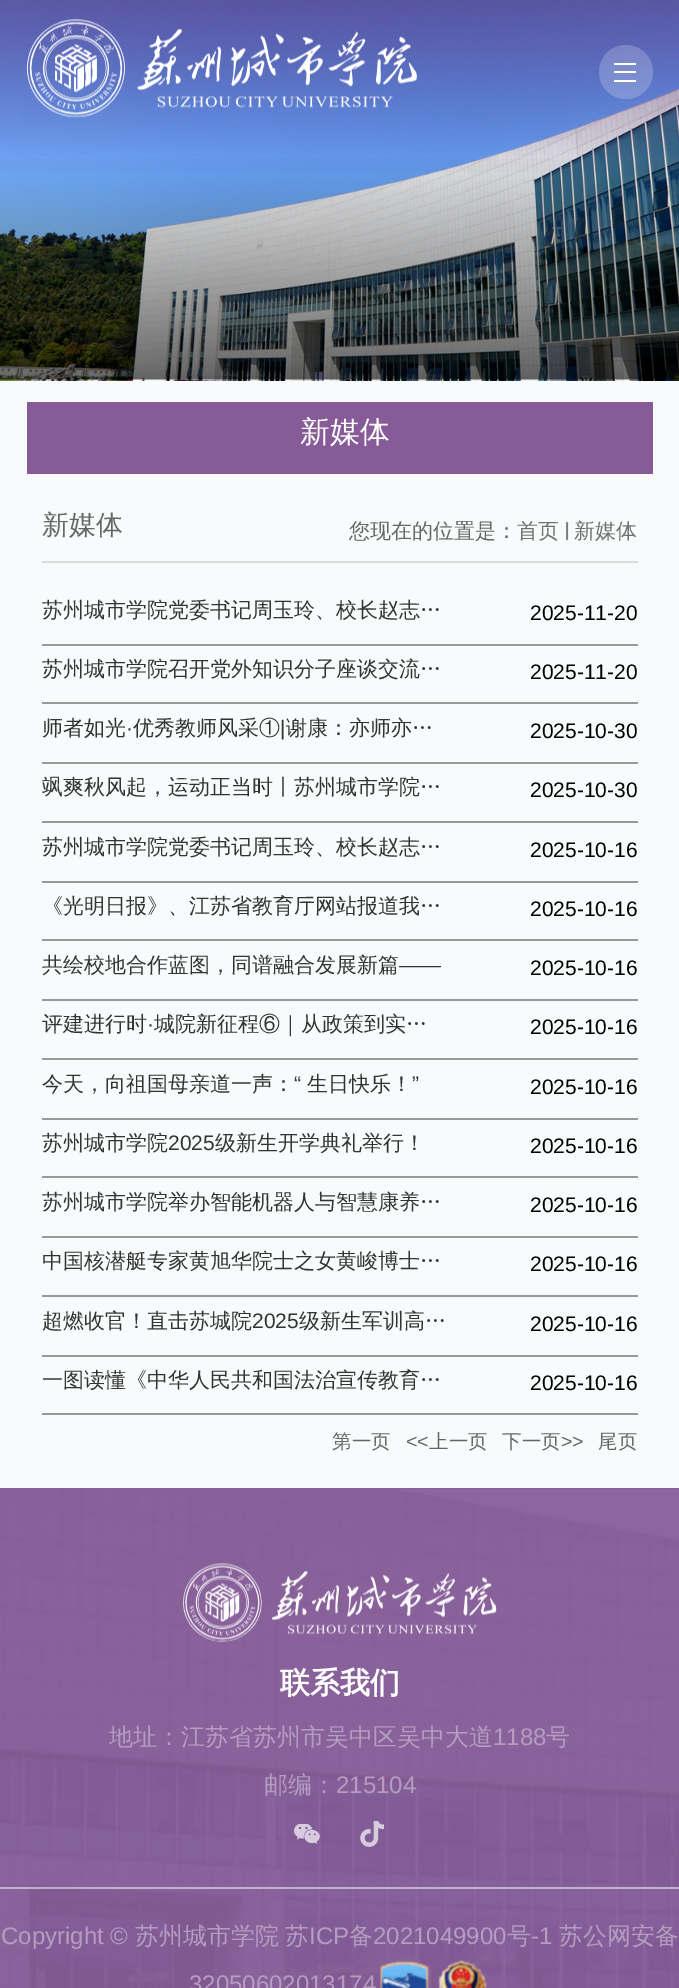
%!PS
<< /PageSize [679 1988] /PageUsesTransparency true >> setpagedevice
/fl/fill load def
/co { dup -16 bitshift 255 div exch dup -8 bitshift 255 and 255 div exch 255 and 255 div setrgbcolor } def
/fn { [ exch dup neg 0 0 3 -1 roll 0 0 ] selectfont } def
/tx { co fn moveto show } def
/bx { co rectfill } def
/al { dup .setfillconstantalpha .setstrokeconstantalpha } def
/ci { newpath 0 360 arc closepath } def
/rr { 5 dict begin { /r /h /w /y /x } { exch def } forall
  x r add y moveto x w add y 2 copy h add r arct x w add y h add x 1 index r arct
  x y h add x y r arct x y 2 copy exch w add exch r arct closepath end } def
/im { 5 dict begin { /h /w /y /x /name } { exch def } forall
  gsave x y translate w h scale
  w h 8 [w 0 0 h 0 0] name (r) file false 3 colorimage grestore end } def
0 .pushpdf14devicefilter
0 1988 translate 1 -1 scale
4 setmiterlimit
0 0 679 1988 16#F8FBFB bx
(media/1.raw) 0 0 679 381 im
(media/2.raw) 0 161 679 219 im
(media/3.raw) 0 0 679 172 im
(media/4.raw) 27 19 390 99 im
0.2 al
16#FFFFFF co
626 72 27 ci fl
1 al
614 63 22 2 1 rr fl
614 71 22 2 1 rr fl
614 80 22 2 1 rr fl
27 402 626 72 16#865B97 bx
42 561 596 2 16#DBDBDB bx
(media/5.raw) 566 521 3 20 im
42 644 596 2 16#999999 bx
42 702 596 2 16#999999 bx
42 762 596 2 16#999999 bx
42 821 596 2 16#999999 bx
42 881 596 2 16#999999 bx
42 939 596 2 16#999999 bx
42 999 596 2 16#999999 bx
42 1058 596 2 16#999999 bx
42 1118 596 2 16#999999 bx
42 1176 596 2 16#999999 bx
42 1236 596 2 16#999999 bx
42 1295 596 2 16#999999 bx
42 1355 596 2 16#999999 bx
42 1413 596 2 16#999999 bx
0 1488 679 500 16#895F9A bx
(media/6.raw) 0 1489 679 499 im
(media/7.raw) 183 1563 314 79 im
(media/8.raw) 294 1824 26 20 im
(media/9.raw) 360 1821 24 26 im
0.5 al
0 1887 679 2 16#FFFFFF bx
1 al
(media/10.raw) 380 1960 50 28 im
(media/11.raw) 438 1960 49 28 im
(新媒体) 300 442 /WenQuanYiZenHei-Medium 30 16#FFFFFF tx
(新媒体) 42 534 /WenQuanYiZenHei-Medium 27 16#666666 tx
(您现在的位置是：) 349 538 /WenQuanYiZenHei-Medium 21 16#666666 tx
(首页) 517 538 /WenQuanYiZenHei-Medium 21 16#717171 tx
(新媒体) 574 538 /WenQuanYiZenHei-Medium 21 16#717171 tx
(苏州城市学院党委书记周玉玲、校长赵志…) 42 617 /WenQuanYiZenHei-Medium 21 16#333333 tx
(2025-11-20) 530 620 /LiberationSans-Regular 21 16#000000 tx
(苏州城市学院召开党外知识分子座谈交流…) 42 676 /WenQuanYiZenHei-Medium 21 16#333333 tx
(2025-11-20) 530 679 /LiberationSans-Regular 21 16#000000 tx
(师者如光) 42 735 /WenQuanYiZenHei-Medium 21 16#333333 tx
(·) 126 735 /LiberationSans-Regular 21 16#333333 tx
(优秀教师风采①) 133 735 /WenQuanYiZenHei-Medium 21 16#333333 tx
(|) 280 735 /LiberationSans-Regular 21 16#333333 tx
(谢康：亦师亦…) 286 735 /WenQuanYiZenHei-Medium 21 16#333333 tx
(2025-10-30) 530 738 /LiberationSans-Regular 21 16#000000 tx
(飒爽秋风起，运动正当时丨苏州城市学院…) 42 794 /WenQuanYiZenHei-Medium 21 16#333333 tx
(2025-10-30) 530 797 /LiberationSans-Regular 21 16#000000 tx
(苏州城市学院党委书记周玉玲、校长赵志…) 42 854 /WenQuanYiZenHei-Medium 21 16#333333 tx
(2025-10-16) 530 857 /LiberationSans-Regular 21 16#000000 tx
(《光明日报》、江苏省教育厅网站报道我…) 42 913 /WenQuanYiZenHei-Medium 21 16#333333 tx
(2025-10-16) 530 916 /LiberationSans-Regular 21 16#000000 tx
(共绘校地合作蓝图，同谱融合发展新篇) 42 972 /WenQuanYiZenHei-Medium 21 16#333333 tx
(——) 399 972 /LiberationSans-Regular 21 16#333333 tx
(2025-10-16) 530 975 /LiberationSans-Regular 21 16#000000 tx
(评建进行时) 42 1031 /WenQuanYiZenHei-Medium 21 16#333333 tx
(·) 147 1031 /LiberationSans-Regular 21 16#333333 tx
(城院新征程⑥｜从政策到实…) 154 1031 /WenQuanYiZenHei-Medium 21 16#333333 tx
(2025-10-16) 530 1034 /LiberationSans-Regular 21 16#000000 tx
(今天，向祖国母亲道一声：) 42 1091 /WenQuanYiZenHei-Medium 21 16#333333 tx
(“) 294 1091 /LiberationSans-Regular 21 16#333333 tx
(生日快乐！) 307 1091 /WenQuanYiZenHei-Medium 21 16#333333 tx
(”) 412 1091 /LiberationSans-Regular 21 16#333333 tx
(2025-10-16) 530 1094 /LiberationSans-Regular 21 16#000000 tx
(苏州城市学院) 42 1150 /WenQuanYiZenHei-Medium 21 16#333333 tx
(2025) 168 1150 /LiberationSans-Regular 21 16#333333 tx
(级新生开学典礼举行！) 215 1150 /WenQuanYiZenHei-Medium 21 16#333333 tx
(2025-10-16) 530 1153 /LiberationSans-Regular 21 16#000000 tx
(苏州城市学院举办智能机器人与智慧康养…) 42 1209 /WenQuanYiZenHei-Medium 21 16#333333 tx
(2025-10-16) 530 1212 /LiberationSans-Regular 21 16#000000 tx
(中国核潜艇专家黄旭华院士之女黄峻博士…) 42 1268 /WenQuanYiZenHei-Medium 21 16#333333 tx
(2025-10-16) 530 1271 /LiberationSans-Regular 21 16#000000 tx
(超燃收官！直击苏城院) 42 1328 /WenQuanYiZenHei-Medium 21 16#333333 tx
(2025) 252 1328 /LiberationSans-Regular 21 16#333333 tx
(级新生军训高…) 299 1328 /WenQuanYiZenHei-Medium 21 16#333333 tx
(2025-10-16) 530 1331 /LiberationSans-Regular 21 16#000000 tx
(一图读懂《中华人民共和国法治宣传教育…) 42 1387 /WenQuanYiZenHei-Medium 21 16#333333 tx
(2025-10-16) 530 1390 /LiberationSans-Regular 21 16#000000 tx
(第一页) 332 1448 /WenQuanYiZenHei-Medium 19.5 16#666666 tx
(<<) 406 1448 /LiberationSans-Regular 19.5 16#666666 tx
(上一页) 429 1448 /WenQuanYiZenHei-Medium 19.5 16#666666 tx
(下一页) 502 1448 /WenQuanYiZenHei-Medium 19.5 16#666666 tx
(>>) 561 1448 /LiberationSans-Regular 19.5 16#666666 tx
(尾页) 598 1448 /WenQuanYiZenHei-Medium 19.5 16#666666 tx
(联系我们) 280 1693 /WenQuanYiZenHei-Bold 30 16#FFFFFF tx
(地址：江苏省苏州市吴中区吴中大道) 109 1745 /WenQuanYiZenHei-Medium 24 16#B59DC1 tx
(1188) 493 1745 /LiberationSans-Regular 24 16#B59DC1 tx
(号) 546 1745 /WenQuanYiZenHei-Medium 24 16#B59DC1 tx
(邮编：) 264 1793 /WenQuanYiZenHei-Medium 24 16#B59DC1 tx
(215104) 336 1793 /LiberationSans-Regular 24 16#B59DC1 tx
(Copyright ©) 1 1944 /LiberationSans-Regular 24 16#B59DC1 tx
(苏州城市学院) 135 1944 /WenQuanYiZenHei-Medium 24 16#B59DC1 tx
(苏) 285 1944 /WenQuanYiZenHei-Medium 24 16#B59DC1 tx
(ICP) 309 1944 /LiberationSans-Regular 24 16#B59DC1 tx
(备) 349 1944 /WenQuanYiZenHei-Medium 24 16#B59DC1 tx
(2021049900) 373 1944 /LiberationSans-Regular 24 16#B59DC1 tx
(号) 507 1944 /WenQuanYiZenHei-Medium 24 16#B59DC1 tx
(-1) 531 1944 /LiberationSans-Regular 24 16#B59DC1 tx
(苏公网安备) 559 1944 /WenQuanYiZenHei-Medium 24 16#B59DC1 tx
(32050602013174) 189 1992 /LiberationSans-Regular 24 16#B59DC1 tx
.poppdf14devicefilter showpage
